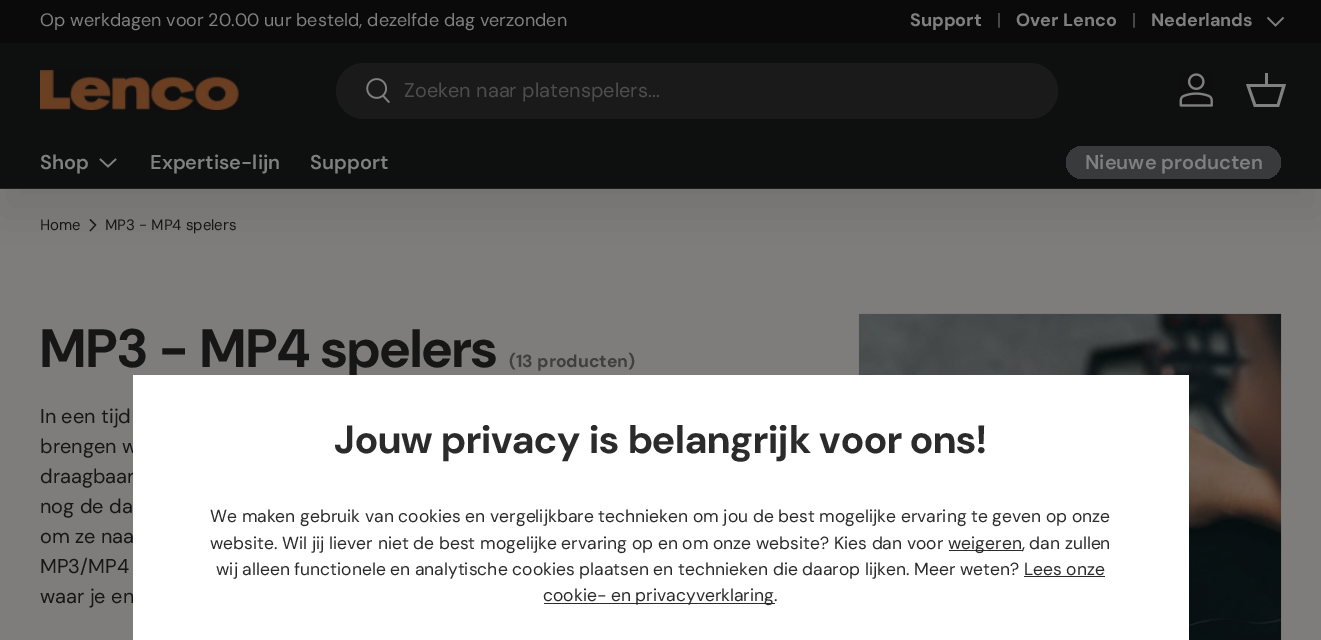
%!PS
<< /PageSize [1321 640] /PageUsesTransparency true >> setpagedevice
/mt/moveto load def
/li/lineto load def
/cp/closepath load def
/fl/fill load def
/st/stroke load def
/gs/gsave load def
/gr/grestore load def
/lw/setlinewidth load def
/co { dup -16 bitshift 255 div exch dup -8 bitshift 255 and 255 div exch 255 and 255 div setrgbcolor } def
/fn { [ exch dup neg 0 0 3 -1 roll 0 0 ] selectfont } def
/tx { co fn moveto show } def
/bx { co rectfill } def
/al { dup .setfillconstantalpha .setstrokeconstantalpha } def
/rr { 5 dict begin { /r /h /w /y /x } { exch def } forall
  x r add y moveto x w add y 2 copy h add r arct x w add y h add x 1 index r arct
  x y h add x y r arct x y 2 copy exch w add exch r arct closepath end } def
/sh { 12 dict begin { /a /b /q /h /w /y /x } { exch def } forall gsave /was 0 def
  9 -2 -9 { dup b mul 4 div /e exch def 1 sub .425 mul 2.718 exch exp 1 add a .99 .min exch div /now exch def
    1 1 now sub 1 was sub div sub al /was now def
    w h .min e 2 mul add 0 gt { x e sub y e sub w e 2 mul add h e 2 mul add
      q e add b .6 mul add w h .min 2 div e add .min 0 .max rr fill } if } for grestore end } def
/im { 5 dict begin { /h /w /y /x /name } { exch def } forall
  gsave x y translate w h scale
  w h 8 [w 0 0 h 0 0] name (r) file false 3 colorimage grestore end } def
0 .pushpdf14devicefilter
0 640 translate 1 -1 scale
4 setmiterlimit
0 0 1321 640 16#7E7D7C bx
16#151615 co
1.1 lw
90 219.5 mt 95.5 225 li 90 231 li st
16#000000 co
0 68 1321 146 0 25 .1 sh
0 0 1321 43 16#0A0A0A bx
16#808080 co
1.6 lw
1283.5 17.5 mt 1275.5 25.5 li 1267.5 17.5 li st
0 43 1321 145 16#0E0F0F bx
0 188 1321 1 16#1F2020 bx
(media/1.raw) 40 69 199 41 im
16#1A1A1A co
336 63 722 56 28 rr fl
(media/2.raw) 366 78 24 26 im
(media/3.raw) 1179 73 34 34 im
16#808080 co
1265 84 mt 1265 73 li 1268 73 li 1268 84 li 1286 84 li 1279 107 li 1254 107 li 1246 84 li cp 1250 87 mt 1256 104 li 1277 104 li 1282 87 li cp fl
116 159 mt 108 166.5 li 100 159 li st
gs 1066 146 215 33 16.5 rr clip newpath
<< /ShadingType 2 /ColorSpace /DeviceRGB /Coords [651 86 1266 239] /Extend [true true] /Function << /FunctionType 3 /Domain [0 1] /Functions [<< /FunctionType 2 /Domain [0 1] /C0 [.278 .282 .286] /C1 [.278 .282 .286] /N 1 >> << /FunctionType 2 /Domain [0 1] /C0 [.22 .227 .231] /C1 [.22 .227 .231] /N 1 >>] /Bounds [.6] /Encode [0 1 0 1] >> >> shfill gr
(media/4.raw) 858 313 424 327 im
(Op werkdagen voor 20.00 uur besteld, dezelfde dag verzonden) 40 26 /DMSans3-Regular 18 16#808080 tx
(Support) 910 26 /DMSans3-Bold 18 16#808080 tx
(|) 997 26 /DMSans3-Regular 18 16#5D5D5D tx
(Over Lenco) 1016 26 /DMSans3-Bold 18 16#808080 tx
(|) 1132 26 /DMSans3-Regular 18 16#5D5D5D tx
(Nederlands) 1151 26 /DMSans3-Bold 18 16#808080 tx
(Zoeken naar platenspelers...) 404 97 /DMSans-Regular 20 16#4D4D4D tx
(Shop) 40 169 /DMSans-SemiBold 20 16#808080 tx
(Expertise-lijn) 150 169 /DMSans-SemiBold 20 16#808080 tx
(Support) 310 169 /DMSans-SemiBold 20 16#808080 tx
(Nieuwe producten) 1085 169 /DMSans-SemiBold 20 16#808080 tx
(Home) 40 230 /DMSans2-Regular 15 16#151615 tx
(MP3 - MP4 spelers) 105 230 /DMSans2-Regular 15 16#151615 tx
(MP3 - MP4 spelers) 40 367 /DMSans-Bold 54 16#151615 tx
(\(13 producten\)) 509 367 /DMSans2-Bold 17.5 16#3F3F3E tx
(In een tijd) 40 423 /DMSans-Regular 20 16#151615 tx
(brengen w) 40 453 /DMSans-Regular 20 16#151615 tx
(draagbaar) 40 483 /DMSans-Regular 20 16#151615 tx
(nog de da) 40 513 /DMSans-Regular 20 16#151615 tx
(om ze naa) 40 543 /DMSans-Regular 20 16#151615 tx
(MP3/MP4) 40 573 /DMSans-Regular 20 16#151615 tx
(waar je en) 40 603 /DMSans-Regular 20 16#151615 tx
133 375 1056 265 16#FFFFFF bx
(Jouw privacy is belangrijk voor ons!) 334 453 /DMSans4-Bold 39.25 16#2A2B2A tx
(We maken gebruik van cookies en vergelijkbare technieken om jou de best mogelijke ervaring te geven op onze) 210 522 /DMSans4-Regular 17.5 16#2A2B2A tx
(website. Wil jij liever niet de best mogelijke ervaring op en om onze website? Kies dan voor) 210 549 /DMSans4-Regular 17.5 16#2A2B2A tx
949 550 74 1 16#2A2B2A bx
(weigeren, dan zullen) 948 549 /DMSans4-Regular 17.5 16#2A2B2A tx
(wij alleen functionele en analytische cookies plaatsen en technieken die daarop lijken. Meer weten? Lees onze) 216 575 /DMSans4-Regular 17.5 16#2A2B2A tx
1024 576 81 1 16#2A2B2A bx
544 603 231 1 16#2A2B2A bx
(cookie- en privacyverklaring.) 543 601 /DMSans4-Regular 17.5 16#2A2B2A tx
.poppdf14devicefilter showpage
